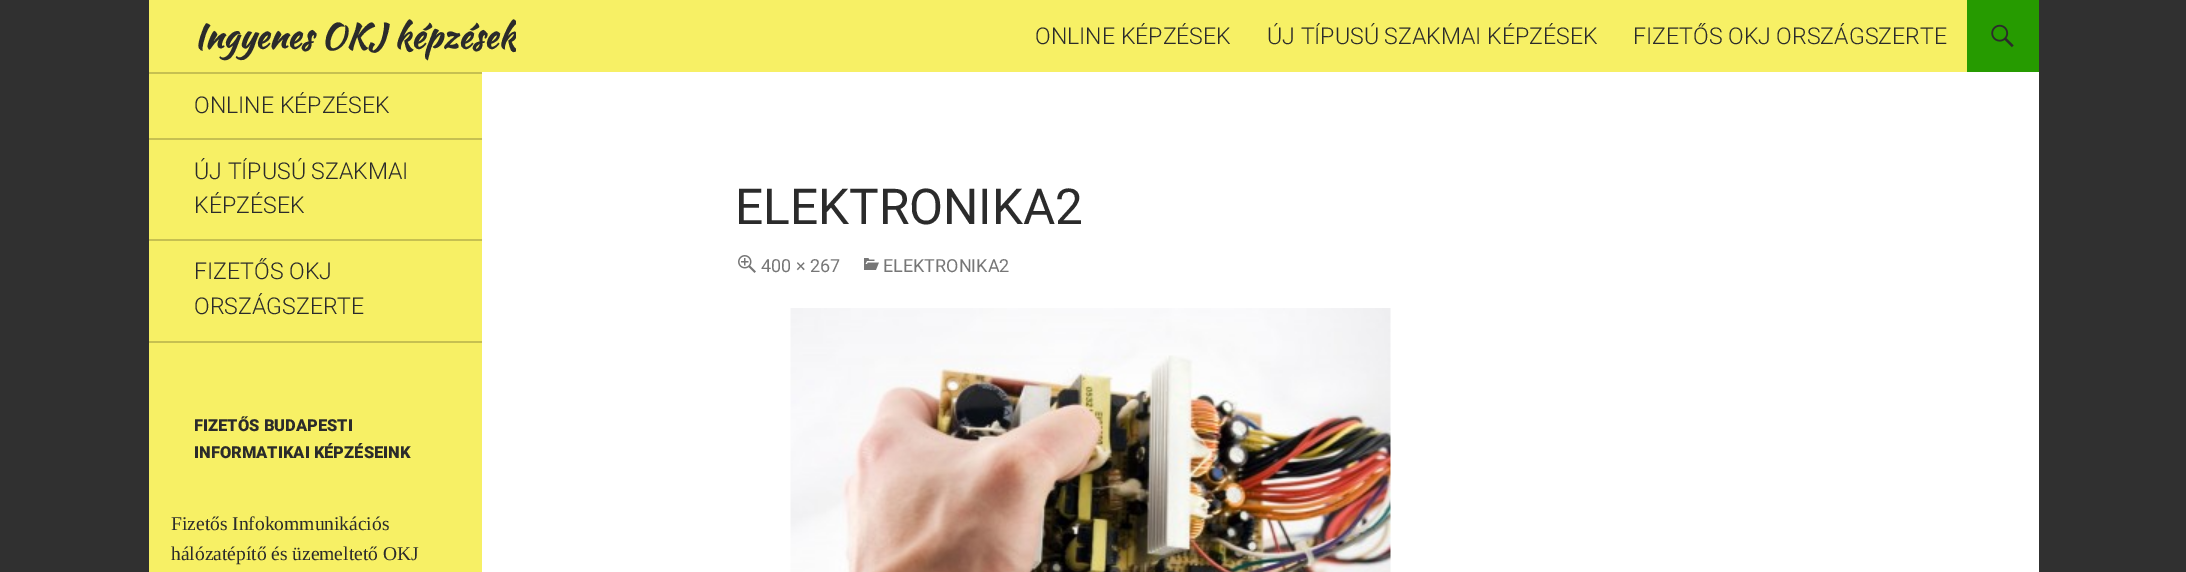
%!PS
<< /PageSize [2186 572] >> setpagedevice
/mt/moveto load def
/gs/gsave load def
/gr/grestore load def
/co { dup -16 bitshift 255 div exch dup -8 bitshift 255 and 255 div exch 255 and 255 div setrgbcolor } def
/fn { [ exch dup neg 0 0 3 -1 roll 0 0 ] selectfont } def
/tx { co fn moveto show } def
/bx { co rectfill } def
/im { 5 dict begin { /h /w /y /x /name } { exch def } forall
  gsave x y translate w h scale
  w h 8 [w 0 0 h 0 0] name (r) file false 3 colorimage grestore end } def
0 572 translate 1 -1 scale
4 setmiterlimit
0 0 2186 572 16#303030 bx
482 72 1557 500 16#FFFFFF bx
149 0 1818 72 16#F7F065 bx
1967 0 72 72 16#269B00 bx
(media/1.raw) 1991 24 23 24 im
149 74 333 498 16#F7F065 bx
149 341 333 2 16#C6C051 bx
149 72 333 2 16#C6C051 bx
149 138 333 2 16#C6C051 bx
149 239 333 2 16#C6C051 bx
(media/2.raw) 738 255 18 18 im
(media/3.raw) 864 258 15 12 im
(media/4.raw) 790 308 601 264 im
gs
194 0 322 72 rectclip
/KaushanScript-Bold 33.5 fn
16#2B2B2B co
194 48 mt .3 0 (Ingyenes OKJ képzések) ashow
gr
(ONLINE KÉPZÉSEK) 1035 44 /Roboto-Light 23.1 16#2B2B2B tx
(ÚJ TÍPUSÚ SZAKMAI KÉPZÉSEK) 1267 44 /Roboto-Light 23.1 16#2B2B2B tx
(FIZETŐS OKJ ORSZÁGSZERTE) 1633 44 /Roboto-Light 23.1 16#2B2B2B tx
(ONLINE KÉPZÉSEK) 194 113 /Roboto-Light 23.1 16#2B2B2B tx
(ÚJ TÍPUSÚ SZAKMAI) 194 179 /Roboto-Light 23.1 16#2B2B2B tx
(KÉPZÉSEK) 194 213 /Roboto-Light 23.1 16#2B2B2B tx
(FIZETŐS OKJ) 194 279 /Roboto-Light 23.1 16#2B2B2B tx
(ORSZÁGSZERTE) 194 314 /Roboto-Light 23.1 16#2B2B2B tx
(FIZETŐS BUDAPESTI) 194 431 /Roboto-Black 16.5 16#2B2B2B tx
(INFORMATIKAI KÉPZÉSEINK) 194 458 /Roboto-Black 16.5 16#2B2B2B tx
(Fizetős Infokommunikációs) 171 530 /LiberationSerif-Regular 19.5 16#2B2B2B tx
(hálózatépítő és üzemeltető OKJ) 171 560 /LiberationSerif-Regular 19.5 16#2B2B2B tx
(ELEKTRONIKA2) 735 224 /Roboto-Regular 49.5 16#2B2B2B tx
(400 × 267) 761 272 /Roboto-Regular 18 16#767676 tx
(ELEKTRONIKA2) 883 272 /Roboto-Regular 18 16#767676 tx
showpage
